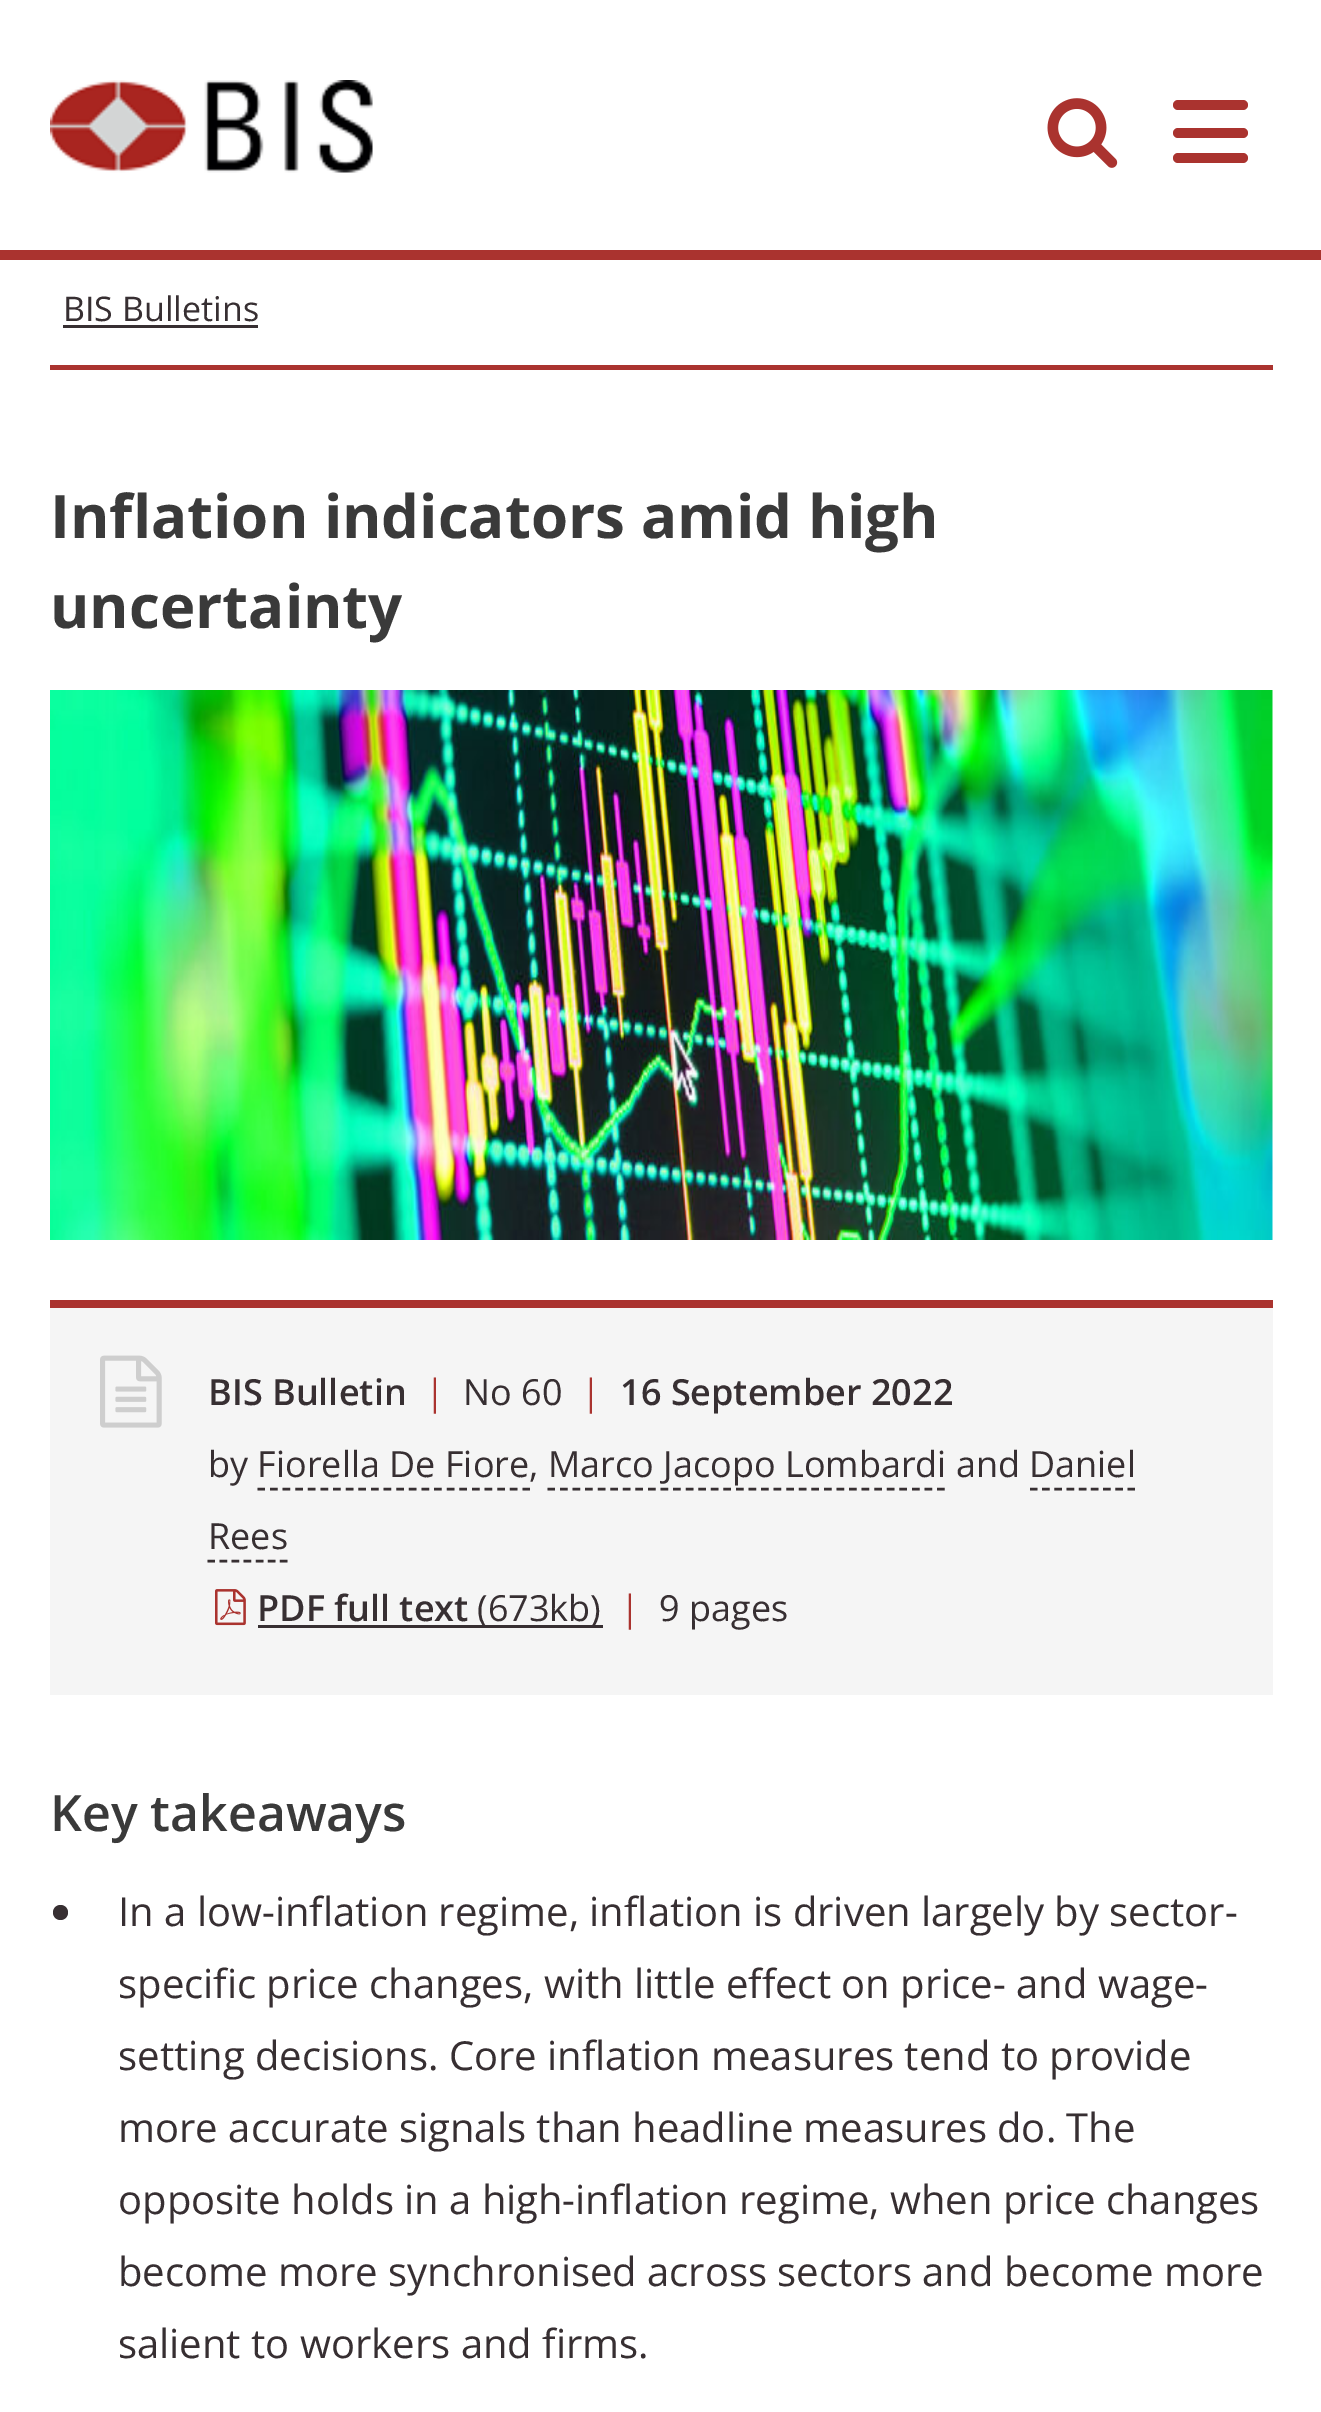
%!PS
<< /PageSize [1321 2412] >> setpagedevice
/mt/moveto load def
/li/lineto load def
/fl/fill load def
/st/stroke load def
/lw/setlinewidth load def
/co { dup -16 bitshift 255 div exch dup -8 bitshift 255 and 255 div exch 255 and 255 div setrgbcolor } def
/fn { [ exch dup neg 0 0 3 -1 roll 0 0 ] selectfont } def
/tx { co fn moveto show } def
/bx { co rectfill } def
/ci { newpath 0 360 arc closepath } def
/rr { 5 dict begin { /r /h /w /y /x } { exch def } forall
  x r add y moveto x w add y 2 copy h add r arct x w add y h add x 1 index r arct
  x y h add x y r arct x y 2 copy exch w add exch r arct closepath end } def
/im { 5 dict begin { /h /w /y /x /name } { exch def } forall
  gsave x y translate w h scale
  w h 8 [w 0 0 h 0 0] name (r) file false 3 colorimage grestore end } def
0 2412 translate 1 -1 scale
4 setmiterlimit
0 0 1321 2412 16#FFFFFF bx
(media/1.raw) 50 80 323 93 im
(media/2.raw) 1047 98 71 70 im
16#AA332F co
1173 100 75 10 5 rr fl
1173 128 75 10 5 rr fl
1173 153 75 10 5 rr fl
0 250 1321 10 16#AA332F bx
50 365 1223 5 16#AA332F bx
63 325 195 3 16#372F32 bx
(media/3.raw) 50 690 1223 550 im
50 1308 1223 387 16#F5F5F5 bx
50 1300 1223 8 16#AA332F bx
(media/4.raw) 100 1355 62 73 im
16#372F32 co
2.5 lw
[7.5 5.12] 0 setdash
257.5 1489 mt 530 1489 li st
[7.5 5.07] 0 setdash
547.5 1489 mt 945 1489 li st
[7.5 4.7] 0 setdash
1030 1489 mt 1135 1489 li st
[7.5 4.58] 0 setdash
207.5 1561 mt 287.5 1561 li st
(media/5.raw) 215 1589 31 37 im
258 1625 345 3 16#372F32 bx
60.5 1912.5 7.5 ci fl
(BIS Bulletins) 63 321 /OpenSans-Regular 34 16#372F32 tx
(Inflation indicators amid high) 50 538 /OpenSans-Bold 60 16#3A3A3A tx
(uncertainty) 50 628 /OpenSans-Bold 60 16#3A3A3A tx
(BIS Bulletin) 208 1405 /OpenSans-SemiBold 36 16#372F32 tx
(|) 425 1405 /OpenSans-Regular 36 16#AA332F tx
(No 60) 463 1405 /OpenSans-Regular 36 16#372F32 tx
(|) 581 1405 /OpenSans-Regular 36 16#AA332F tx
(16 September 2022) 620 1405 /OpenSans-SemiBold 36 16#372F32 tx
(by Fiorella De Fiore, Marco Jacopo Lombardi and Daniel) 208 1477 /OpenSans-Regular 36 16#372F32 tx
(Rees) 208 1549 /OpenSans-Regular 36 16#372F32 tx
(PDF full text) 257 1621 /OpenSans-SemiBold 36 16#372F32 tx
(\(673kb\)) 477 1621 /OpenSans-Regular 36 16#372F32 tx
(|) 620 1621 /OpenSans-Regular 36 16#AA332F tx
(9 pages) 659 1621 /OpenSans-Regular 36 16#372F32 tx
(Key takeaways) 50 1831 /OpenSans-SemiBold 50 16#3A3A3A tx
(In a low-inflation regime, inflation is driven largely by sector-) 118 1926 /OpenSans-Regular 40 16#372F32 tx
(specific price changes, with little effect on price- and wage-) 118 1998 /OpenSans-Regular 40 16#372F32 tx
(setting decisions. Core inflation measures tend to provide) 118 2070 /OpenSans-Regular 40 16#372F32 tx
(more accurate signals than headline measures do. The) 118 2142 /OpenSans-Regular 40 16#372F32 tx
(opposite holds in a high-inflation regime, when price changes) 118 2214 /OpenSans-Regular 40 16#372F32 tx
(become more synchronised across sectors and become more) 118 2286 /OpenSans-Regular 40 16#372F32 tx
(salient to workers and firms.) 118 2358 /OpenSans-Regular 40 16#372F32 tx
showpage
